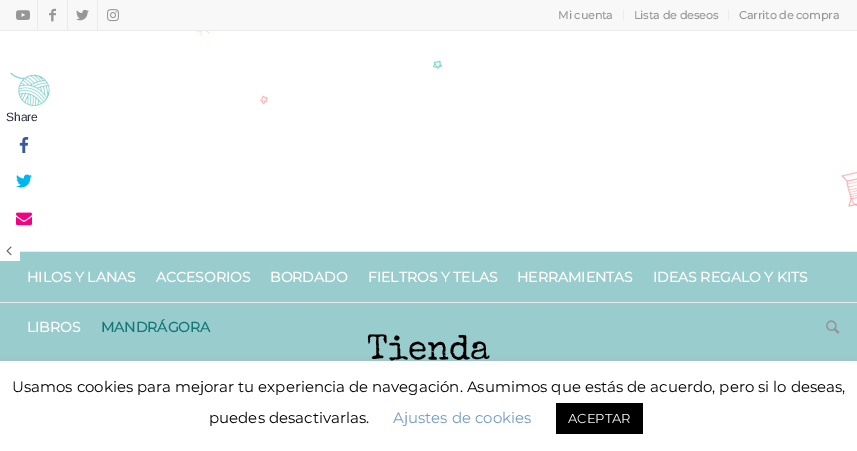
%!PS
<< /PageSize [857 451] /PageUsesTransparency true >> setpagedevice
/co { dup -16 bitshift 255 div exch dup -8 bitshift 255 and 255 div exch 255 and 255 div setrgbcolor } def
/fn { [ exch dup neg 0 0 3 -1 roll 0 0 ] selectfont } def
/tx { co fn moveto show } def
/bx { co rectfill } def
/al { dup .setfillconstantalpha .setstrokeconstantalpha } def
/rr { 5 dict begin { /r /h /w /y /x } { exch def } forall
  x r add y moveto x w add y 2 copy h add r arct x w add y h add x 1 index r arct
  x y h add x y r arct x y 2 copy exch w add exch r arct closepath end } def
/sh { 12 dict begin { /a /b /q /h /w /y /x } { exch def } forall gsave /was 0 def
  9 -2 -9 { dup b mul 4 div /e exch def 1 sub .425 mul 2.718 exch exp 1 add a .99 .min exch div /now exch def
    1 1 now sub 1 was sub div sub al /was now def
    w h .min e 2 mul add 0 gt { x e sub y e sub w e 2 mul add h e 2 mul add
      q e add b .6 mul add w h .min 2 div e add .min 0 .max rr fill } if } for grestore end } def
/im { 5 dict begin { /h /w /y /x /name } { exch def } forall
  gsave x y translate w h scale
  w h 8 [w 0 0 h 0 0] name (r) file false 3 colorimage grestore end } def
0 .pushpdf14devicefilter
0 451 translate 1 -1 scale
4 setmiterlimit
0 0 857 451 16#99CCCC bx
0 31 857 220 16#FFFFFF bx
(media/9.raw) 10 31 847 176 im
(media/1.raw) 19 137 10 16 im
(media/2.raw) 16 174 16 14 im
(media/3.raw) 16 212 16 14 im
0 251 20 10 16#FFFFFF bx
(media/4.raw) 6 246 6 10 im
0 0 857 30 16#F8F8F8 bx
0 30 857 1 16#EBEBEB bx
37 0 1 30 16#EBEBEB bx
(media/5.raw) 16 10 14 10 im
67 0 1 30 16#EBEBEB bx
(media/6.raw) 49 8 7 14 im
97 0 1 30 16#EBEBEB bx
(media/7.raw) 76 9 13 12 im
(media/8.raw) 107 9 12 13 im
623 10 1 10 16#EBEBEB bx
728 10 1 10 16#EBEBEB bx
0 302 857 1 16#EBEBEB bx
20 251 837 1 16#EBEBEB bx
(media/10.raw) 826 320 14 14 im
16#ACABAB co
0 360 857 90 0 5 .3 sh
0 361 857 90 16#FFFFFF bx
556 403 87 31 16#000000 bx
(Share) 6 121 /LiberationSans-Regular 12 16#2B2D40 tx
(Mi cuenta) 558 19 /Montserrat-Bold 11 16#969696 tx
(Lista de deseos) 634 19 /Montserrat-Bold 11 16#969696 tx
(Carrito de compra) 739 19 /Montserrat-Bold 11 16#969696 tx
(HILOS Y LANAS) 27 282 /Montserrat-Bold 14 16#FFFFFF tx
(ACCESORIOS) 156 282 /Montserrat-Bold 14 16#FFFFFF tx
(BORDADO) 270 282 /Montserrat-Bold 14 16#FFFFFF tx
(FIELTROS Y TELAS) 368 282 /Montserrat-Bold 14 16#FFFFFF tx
(HERRAMIENTAS) 517 282 /Montserrat-Bold 14 16#FFFFFF tx
(IDEAS REGALO Y KITS) 653 282 /Montserrat-Bold 14 16#FFFFFF tx
(LIBROS) 27 332 /Montserrat-Bold 14 16#FFFFFF tx
(MANDRÁGORA) 101 332 /Montserrat-Bold 14 16#147777 tx
(Tienda) 367 359 /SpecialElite-Regular 35 16#000000 tx
(Usamos cookies para mejorar tu experiencia de navegación. Asumimos que estás de acuerdo, pero si lo deseas,) 12 392 /Montserrat-Thin 15 16#000000 tx
(puedes desactivarlas.) 209 423 /Montserrat-Thin 15 16#000000 tx
(Ajustes de cookies) 393 423 /Montserrat-Thin 15 16#7299BF tx
(ACEPTAR) 568 423 /Montserrat-Thin 13 16#FFFFFF tx
.poppdf14devicefilter showpage
